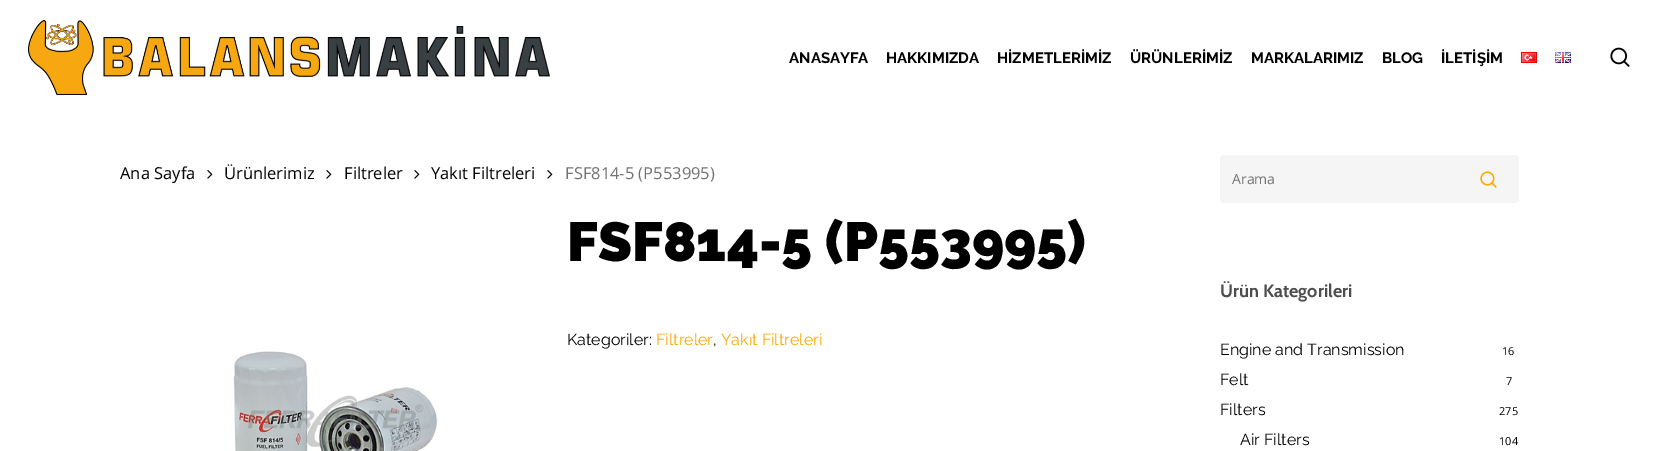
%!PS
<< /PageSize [1660 451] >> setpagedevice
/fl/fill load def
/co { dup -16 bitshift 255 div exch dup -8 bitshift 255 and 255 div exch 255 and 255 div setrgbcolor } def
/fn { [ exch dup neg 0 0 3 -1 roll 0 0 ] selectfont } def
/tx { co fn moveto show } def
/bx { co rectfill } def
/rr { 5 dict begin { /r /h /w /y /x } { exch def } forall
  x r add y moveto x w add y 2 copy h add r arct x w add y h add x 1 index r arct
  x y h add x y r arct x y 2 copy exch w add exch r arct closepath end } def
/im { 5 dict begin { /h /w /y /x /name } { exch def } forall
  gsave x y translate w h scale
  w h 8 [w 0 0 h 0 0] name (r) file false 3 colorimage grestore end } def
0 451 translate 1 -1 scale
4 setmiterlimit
0 0 1660 451 16#FFFFFF bx
(media/1.raw) 28 20 522 75 im
(media/2.raw) 1521 52 16 11 im
(media/3.raw) 1555 52 16 11 im
(media/4.raw) 1610 47 20 20 im
(media/5.raw) 207 170 6 9 im
(media/5.raw) 326 170 6 9 im
(media/5.raw) 414 170 6 9 im
(media/5.raw) 547 170 6 9 im
(media/6.raw) 233 351 205 100 im
16#F5F5F5 co
1220 155 299 48 4 rr fl
(media/7.raw) 1480 171 17 17 im
(ANASAYFA) 789 63 /Raleway-Bold 15 16#000000 tx
(HAKKIMIZDA) 886 63 /Raleway-Bold 15 16#000000 tx
(HİZMETLERİMİZ) 997 63 /Raleway-Bold 15 16#000000 tx
(ÜRÜNLERİMİZ) 1130 63 /Raleway-Bold 15 16#000000 tx
(MARKALARIMIZ) 1251 63 /Raleway-Bold 15 16#000000 tx
(BLOG) 1382 63 /Raleway-Bold 15 16#000000 tx
(İLETİŞİM) 1441 63 /Raleway-Bold 15 16#000000 tx
(Ana Sayfa) 120 179 /OpenSans-Regular 16.5 16#000000 tx
(Ürünlerimiz) 224 179 /OpenSans-Regular 16.5 16#000000 tx
(Filtreler) 344 179 /OpenSans-Regular 16.5 16#000000 tx
(Yakıt Filtreleri) 431 179 /OpenSans-Regular 16.5 16#000000 tx
(FSF814-5 \(P553995\)) 565 179 /OpenSans-Regular 16.5 16#737373 tx
(FSF814-5 \(P553995\)) 567 261 /Raleway-Black 55 16#000000 tx
(Kategoriler:) 567 345 /Raleway-Regular 16 16#000000 tx
(Filtreler) 656 345 /Raleway-Regular 16 16#F9A800 tx
(,) 713 345 /Raleway-Regular 16 16#000000 tx
(Yakıt Filtreleri) 721 345 /Raleway-Regular 16 16#F9A800 tx
(Arama) 1232 184 /OpenSans-Regular 14 16#737373 tx
(Ürün Kategorileri) 1220 297 /Cabin-Bold 18 16#4D4D4D tx
(Engine and Transmission) 1220 355 /Raleway-Regular 16 16#000000 tx
(16) 1502 355 /OpenSans-Regular 11 16#000000 tx
(Felt) 1220 385 /Raleway-Regular 16 16#000000 tx
(7) 1506 385 /OpenSans-Regular 11 16#000000 tx
(Filters) 1220 415 /Raleway-Regular 16 16#000000 tx
(275) 1499 415 /OpenSans-Regular 11 16#000000 tx
(Air Filters) 1240 445 /Raleway-Regular 16 16#000000 tx
(104) 1499 445 /OpenSans-Regular 11 16#000000 tx
showpage
